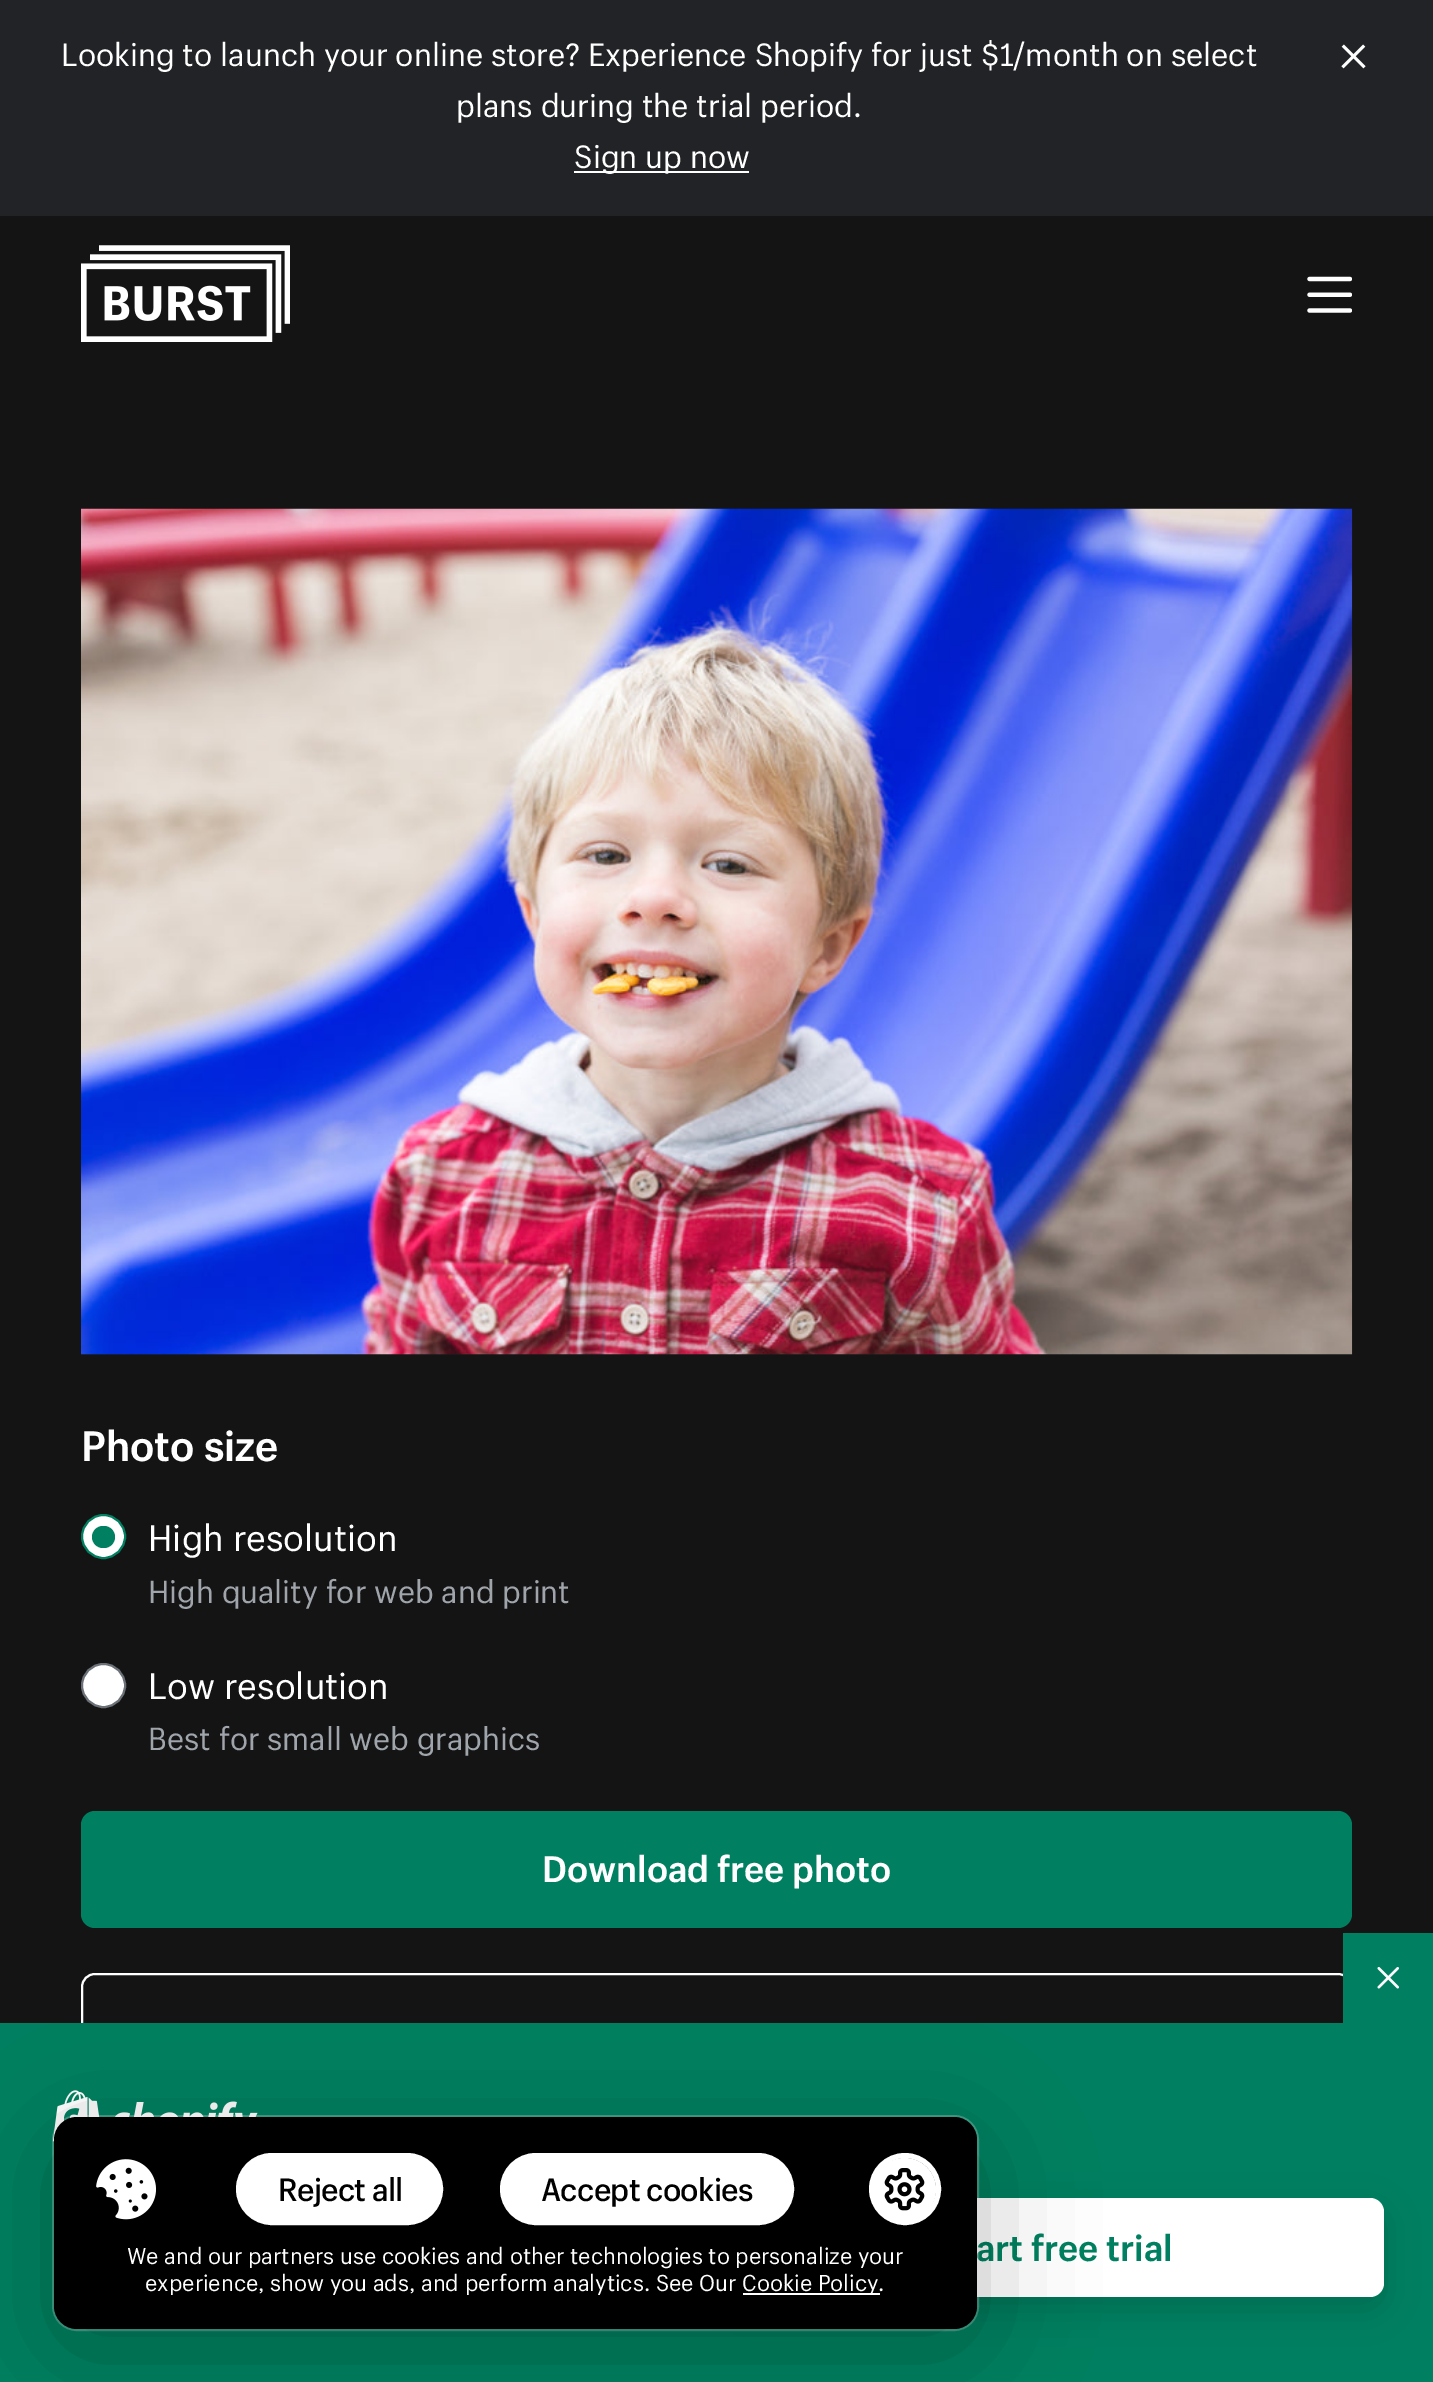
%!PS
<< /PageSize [1433 2382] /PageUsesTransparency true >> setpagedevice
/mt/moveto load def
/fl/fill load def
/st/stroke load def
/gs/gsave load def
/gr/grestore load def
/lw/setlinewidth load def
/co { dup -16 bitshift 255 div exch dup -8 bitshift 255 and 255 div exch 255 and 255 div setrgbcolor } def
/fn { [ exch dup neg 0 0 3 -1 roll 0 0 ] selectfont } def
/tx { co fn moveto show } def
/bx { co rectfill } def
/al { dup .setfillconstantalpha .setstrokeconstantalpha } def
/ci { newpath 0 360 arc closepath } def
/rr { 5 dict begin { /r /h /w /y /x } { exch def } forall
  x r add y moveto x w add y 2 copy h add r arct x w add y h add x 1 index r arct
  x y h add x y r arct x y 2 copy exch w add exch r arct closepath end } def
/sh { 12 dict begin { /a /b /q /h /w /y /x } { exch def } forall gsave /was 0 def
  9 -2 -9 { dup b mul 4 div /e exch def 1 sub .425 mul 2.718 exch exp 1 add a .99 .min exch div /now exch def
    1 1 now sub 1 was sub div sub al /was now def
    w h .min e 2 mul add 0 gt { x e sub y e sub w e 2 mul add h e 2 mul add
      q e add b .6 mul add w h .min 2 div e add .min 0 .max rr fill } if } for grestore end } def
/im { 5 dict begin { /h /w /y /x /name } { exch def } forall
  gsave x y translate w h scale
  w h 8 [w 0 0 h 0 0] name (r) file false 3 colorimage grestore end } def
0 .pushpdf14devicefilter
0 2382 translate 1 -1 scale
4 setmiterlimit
0 0 1433 2382 16#141414 bx
0 0 1433 216 16#212326 bx
574 171 175 2 16#FFFFFF bx
(media/1.raw) 1341 44 25 25 im
(media/2.raw) 81 245 209 97 im
(media/3.raw) 1307 276 45 37 im
81 1354 1271 1 16#16191B bx
(media/4.raw) 81 508 1272 847 im
16#FFFFFF co
103.5 1536.5 21.5 ci gs fl gr
16#008060 co
2 lw
st
92 1526 23 22 11 rr fl
16#FFFFFF co
103.5 1685.5 21.5 ci gs fl gr
16#6B7177 co
st
16#008060 co
81 1811 1271 117 14 rr fl
16#FFFFFF co
82 1974 1269 115 13 rr st
1343 1933 90 90 16#008060 bx
(media/5.raw) 1377 1967 22 22 im
0 2023 1433 359 16#008060 bx
(media/6.raw) 52 2090 206 52 im
16#000000 co
731 2210 653 99 14 17 .15 sh
16#FFFFFF co
731 2198 653 99 14 rr fl
(Looking to launch your online store? Experience Shopify for just $1/month on select) 61 66 /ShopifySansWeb-Regular 31.5 16#FFFFFF tx
(plans during the trial period.) 456 117 /ShopifySansWeb-Regular 31.5 16#FFFFFF tx
(Sign up now) 574 168 /ShopifySansWeb-Regular 31.5 16#FFFFFF tx
(Photo size) 81 1461 /ShopifySansWeb-Bold 41.5 16#FFFFFF tx
(High resolution) 148 1551 /ShopifySansWeb-Regular 36 16#FFFFFF tx
(High quality for web and print) 148 1603 /ShopifySansWeb-Regular 31.3 16#9FA5AB tx
(Low resolution) 148 1699 /ShopifySansWeb-Regular 36 16#FFFFFF tx
(Best for small web graphics) 148 1750 /ShopifySansWeb-Regular 31.3 16#9FA5AB tx
(Download free photo) 542 1882 /ShopifySansWeb-Bold 36 16#FFFFFF tx
(art free trial) 976 2261 /ShopifySansWeb-Bold 36 16#008060 tx
0.25 al
16#FFFFFF co
53 2116 925 214 24 rr st
1 al
16#000000 co
54 2140 923 211 23 56 .25 sh
54 2117 923 212 23 rr fl
(media/7.raw) 96 2159 60 61 im
16#FFFFFF co
238.5 2155.5 202 67 33.5 rr gs fl gr
5 lw
st
/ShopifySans-Medium 31.5 fn
16#000000 co
278 2201 mt -.75 0 (Reject all) ashow
16#FFFFFF co
502.5 2155.5 289 67 33.5 rr gs fl gr
st
16#000000 co
541 2201 mt -.75 0 (Accept cookies) ashow
16#FFFFFF co
905 2189 33.5 ci st
904.5 2189.5 31.5 ci fl
(media/8.raw) 884 2168 41 43 im
(We and our partners use cookies and other technologies to personalize your) 127 2264 /ShopifySansWeb-Regular 22.5 16#FFFFFF tx
(experience, show you ads, and perform analytics. See Our) 145 2291 /ShopifySansWeb-Regular 22.5 16#FFFFFF tx
743 2293 137 2 16#FFFFFF bx
(Cookie Policy.) 742 2291 /ShopifySansWeb-Regular 22.5 16#FFFFFF tx
.poppdf14devicefilter showpage
